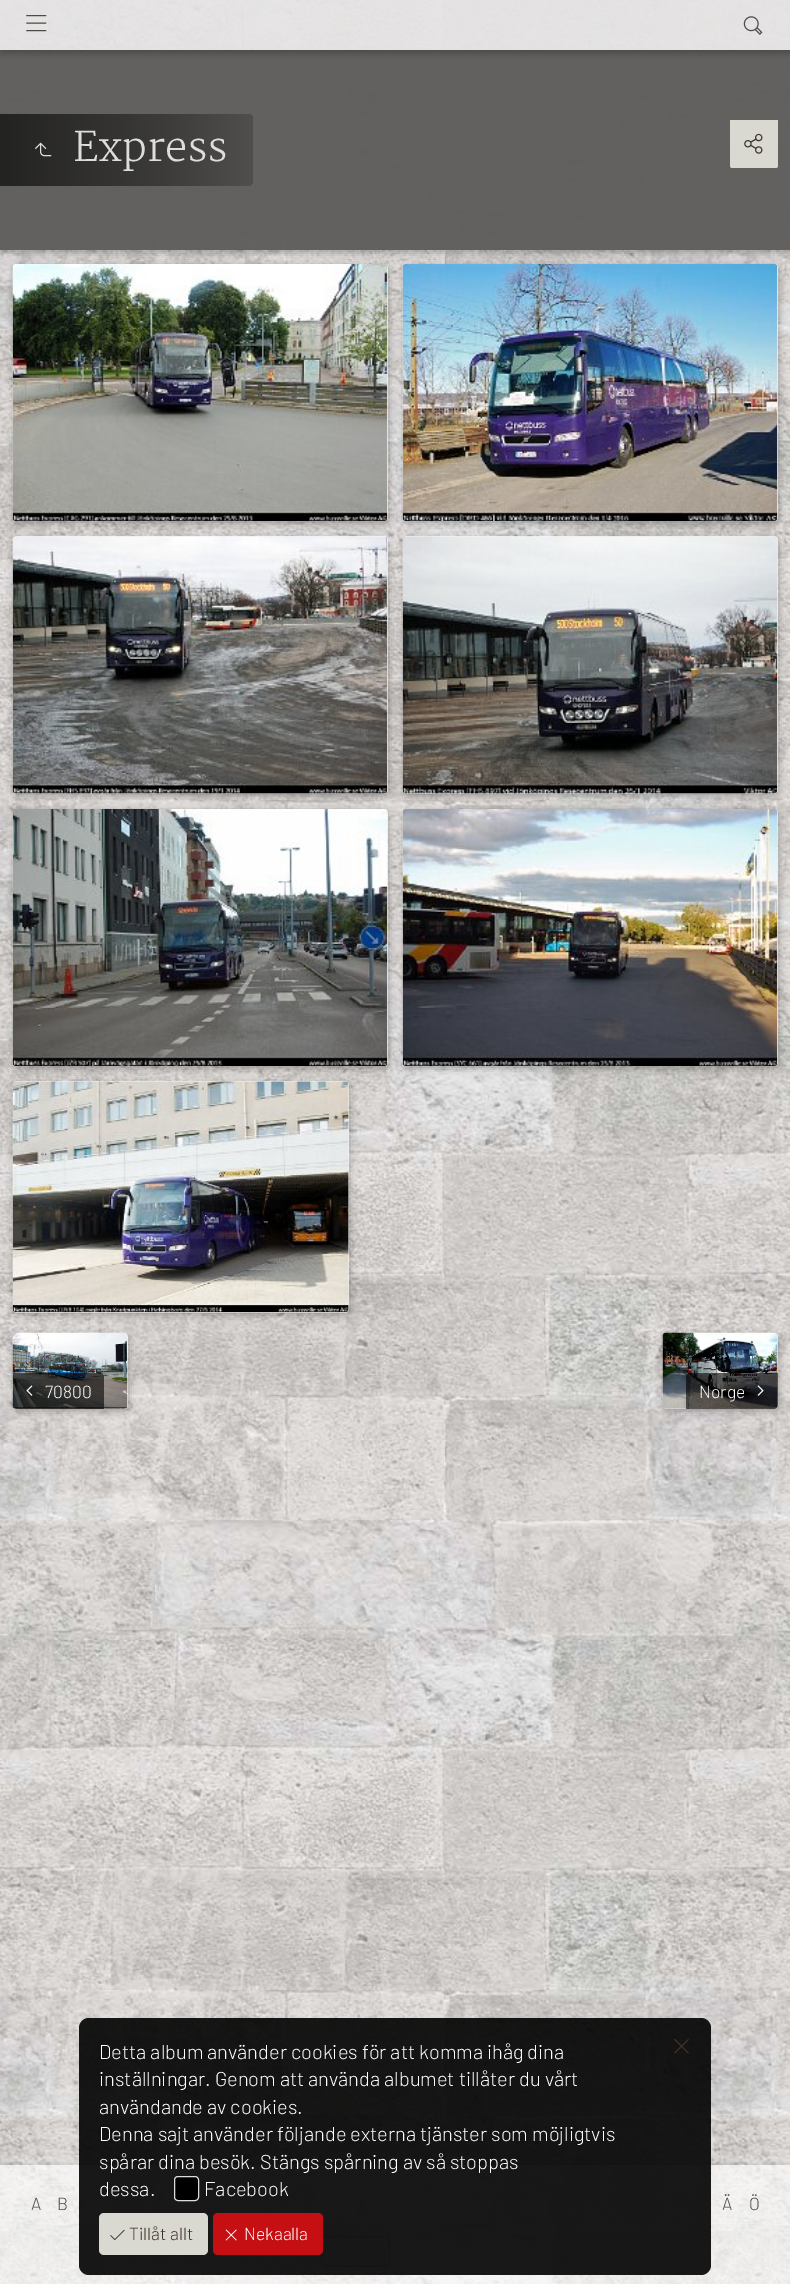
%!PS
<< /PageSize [790 2284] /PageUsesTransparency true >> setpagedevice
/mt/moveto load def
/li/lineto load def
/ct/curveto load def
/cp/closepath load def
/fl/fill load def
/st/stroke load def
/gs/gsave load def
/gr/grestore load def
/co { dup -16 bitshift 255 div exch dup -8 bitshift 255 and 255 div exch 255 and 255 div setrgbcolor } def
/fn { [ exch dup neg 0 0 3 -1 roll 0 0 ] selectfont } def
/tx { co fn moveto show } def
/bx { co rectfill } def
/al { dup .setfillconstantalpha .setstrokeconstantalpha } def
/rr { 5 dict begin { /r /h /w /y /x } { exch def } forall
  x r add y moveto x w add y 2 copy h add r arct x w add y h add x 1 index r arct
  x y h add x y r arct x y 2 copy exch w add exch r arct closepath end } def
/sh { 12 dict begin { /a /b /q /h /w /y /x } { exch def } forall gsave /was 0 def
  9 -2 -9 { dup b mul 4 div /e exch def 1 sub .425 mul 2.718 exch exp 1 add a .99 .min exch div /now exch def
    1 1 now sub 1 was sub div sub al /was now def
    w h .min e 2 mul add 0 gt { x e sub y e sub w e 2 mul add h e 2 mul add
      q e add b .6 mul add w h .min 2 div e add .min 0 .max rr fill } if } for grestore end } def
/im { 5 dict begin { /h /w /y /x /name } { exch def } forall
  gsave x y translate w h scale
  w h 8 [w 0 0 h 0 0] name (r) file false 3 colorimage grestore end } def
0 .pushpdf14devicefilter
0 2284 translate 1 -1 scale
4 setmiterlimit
0 0 790 2284 16#FFFFFF bx
(media/1.raw) 0 0 790 2284 im
gs
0 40 mt 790 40 li 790 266 li 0 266 li cp 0 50 mt 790 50 li 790 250 li 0 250 li cp eoclip newpath
16#000000 co
1 53 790 200 0 4 .27 sh
gr
0.9 al
0 50 790 200 16#E6E5E5 bx
0.67 al
0 50 790 200 16#23211E bx
gs
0 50 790 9 rectclip
1 al
16#000000 co
1 3 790 50 0 4 .27 sh
gr
0.9 al
0 0 790 50 16#E6E5E5 bx
1 al
(media/2.raw) 26 15 21 17 im
(media/3.raw) 743 16 20 19 im
gs 0 114 mt 247 114 li 250.5 114 253 116.5 253 120 ct 253 180 li 253 183.5 250.5 186 247 186 ct 0 186 li cp clip newpath
<< /ShadingType 2 /ColorSpace /DeviceRGB /Coords [0 150 253 150] /Extend [true true] /Function << /FunctionType 3 /Domain [0 1] /Functions [<< /FunctionType 2 /Domain [0 1] /C0 [.137 .137 .133] /C1 [.227 .224 .22] /N 1 >> << /FunctionType 2 /Domain [0 1] /C0 [.227 .224 .22] /C1 [.318 .31 .302] /N 1 >>] /Bounds [.6] /Encode [0 1 0 1] >> >> shfill gr
(media/4.raw) 34 142 18 15 im
16#D9D9D1 co
730 120 mt 778 120 li 778 165.5 li 778 167 777 168 775.5 168 ct 732.5 168 li 731 168 730 167 730 165.5 ct cp fl
(media/5.raw) 744 133 19 21 im
16#000000 co
14 266 375 258 4 4 .27 sh
0.67 al
16#FFFFFF co
13 264 375 257 4 rr fl
1 al
(media/6.raw) 12 264 376 257 im
16#000000 co
404 266 375 258 4 4 .27 sh
0.67 al
16#FFFFFF co
403 264 375 257 4 rr fl
1 al
(media/7.raw) 402 264 376 257 im
16#000000 co
14 539 375 257 4 4 .27 sh
0.67 al
16#FFFFFF co
13 536 375 258 4 rr fl
1 al
(media/8.raw) 12 536 376 258 im
16#000000 co
404 539 375 257 4 4 .27 sh
0.67 al
16#FFFFFF co
403 536 375 258 4 rr fl
1 al
(media/9.raw) 402 536 376 258 im
16#000000 co
14 811 375 258 4 4 .27 sh
0.67 al
16#FFFFFF co
13 809 375 257 4 rr fl
1 al
(media/10.raw) 12 809 376 257 im
16#000000 co
404 811 375 258 4 4 .27 sh
0.67 al
16#FFFFFF co
403 809 375 257 4 rr fl
1 al
(media/11.raw) 402 809 376 257 im
16#000000 co
14 1084 336 231 4 4 .27 sh
0.67 al
16#FFFFFF co
13 1081 336 232 4 rr fl
1 al
(media/12.raw) 12 1081 337 232 im
16#000000 co
14 1335 115 76 4 4 .27 sh
0.67 al
16#FFFFFF co
13 1333 115 76 4 rr fl
1 al
(media/13.raw) 12 1332 116 77 im
0.6 al
16#000000 co
13 1373 mt 100 1373 li 102 1373 104 1375 104 1377 ct 104 1409 li 17 1409 li 15 1409 13 1407 13 1405 ct cp fl
1 al
(media/14.raw) 26 1385 7 11 im
664 1335 115 76 4 4 .27 sh
0.67 al
16#FFFFFF co
663 1333 115 76 4 rr fl
1 al
(media/15.raw) 662 1332 116 77 im
0.6 al
16#000000 co
690 1373 mt 778 1373 li 778 1405 li 778 1407 776 1409 774 1409 ct 686 1409 li 686 1377 li 686 1375 688 1373 690 1373 ct cp fl
1 al
(media/16.raw) 757 1385 7 11 im
gs
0 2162 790 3 rectclip
1 2168 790 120 0 4 .27 sh
gr
0.67 al
0 2165 790 119 16#FFFFFF bx
0.2 al
24 2184 742 1 16#FFFFFF bx
24 2223 742 1 16#FFFFFF bx
16#4C4947 co
321.5 2236.5 68 29 3.5 rr st
0.9 al
16#000000 co
79 2018 632 257 10 rr fl
1 al
174.5 2176.5 24 24 3.5 rr gs fl gr
16#DDDDDD co
st
(media/17.raw) 674 2039 15 15 im
16#D9D9D1 co
99 2213 109 42 5 rr fl
(media/18.raw) 110 2229 15 12 im
16#C60F13 co
213 2213 110 42 5 rr fl
(media/19.raw) 225 2229 12 12 im
(Express) 73 161 /Martel-Light 40 16#DDDDDD tx
(p) 152 783 /Barlow-Light 15 16#686665 tx
(-) 288 783 /Barlow-Light 15 16#686665 tx
(70800) 45 1398 /Barlow-Light 17.5 16#FFFFFF tx
(Norge) 699 1398 /Barlow-Light 17.5 16#FFFFFF tx
(Detta album använder cookies för att komma ihåg dina) 99 2059 /Barlow-Light 20 16#FFFFFF tx
(inställningar. Genom att använda albumet tillåter du vårt) 99 2086 /Barlow-Light 20 16#FFFFFF tx
(användande av cookies.) 99 2114 /Barlow-Light 20 16#FFFFFF tx
(Denna sajt använder följande externa tjänster som möjligtvis) 99 2141 /Barlow-Light 20 16#FFFFFF tx
(spårar dina besök. Stängs spårning av så stoppas) 99 2169 /Barlow-Light 20 16#FFFFFF tx
(dessa.) 99 2196 /Barlow-Light 20 16#FFFFFF tx
(Facebook) 204 2196 /Barlow-Light 20 16#FFFFFF tx
(Tillåt allt) 129 2240 /Barlow-Light 17.5 16#403229 tx
(Nekaalla) 244 2240 /Barlow-Light 17.5 16#FFFFFF tx
(A) 31 2210 /Barlow-Light 17.5 16#4C4947 tx
(B) 57 2210 /Barlow-Light 17.5 16#4C4947 tx
(Ä) 722 2210 /Barlow-Light 17.5 16#4C4947 tx
(Ö) 749 2210 /Barlow-Light 17.5 16#4C4947 tx
.poppdf14devicefilter showpage
